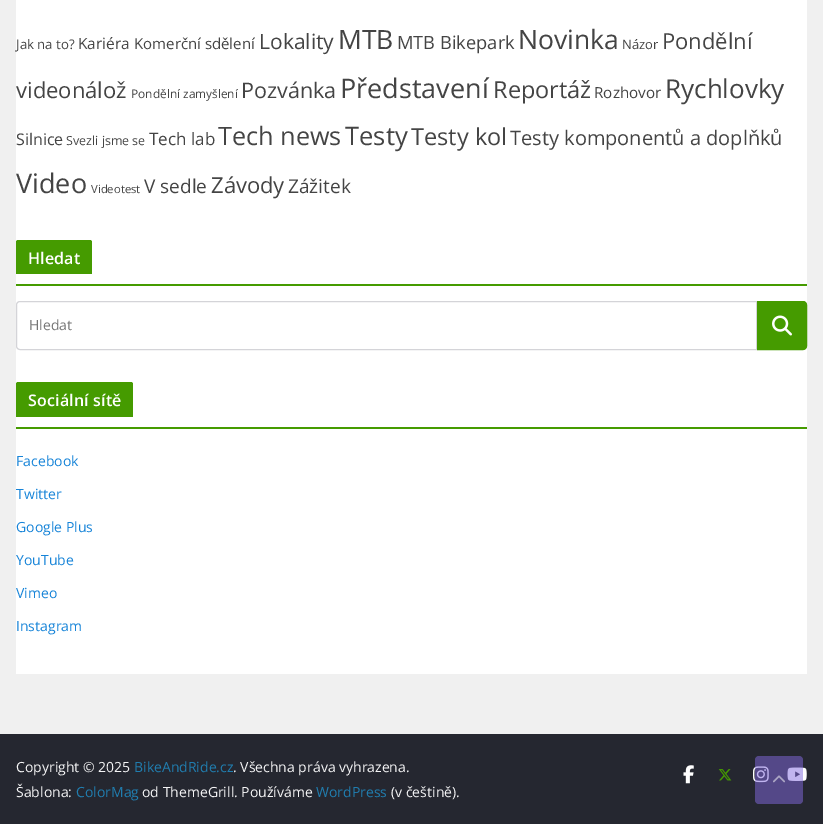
%!PS
<< /PageSize [823 824] /PageUsesTransparency true >> setpagedevice
/mt/moveto load def
/li/lineto load def
/ct/curveto load def
/cp/closepath load def
/fl/fill load def
/st/stroke load def
/gs/gsave load def
/gr/grestore load def
/co { dup -16 bitshift 255 div exch dup -8 bitshift 255 and 255 div exch 255 and 255 div setrgbcolor } def
/fn { [ exch dup neg 0 0 3 -1 roll 0 0 ] selectfont } def
/tx { co fn moveto show } def
/bx { co rectfill } def
/al { dup .setfillconstantalpha .setstrokeconstantalpha } def
/rr { 5 dict begin { /r /h /w /y /x } { exch def } forall
  x r add y moveto x w add y 2 copy h add r arct x w add y h add x 1 index r arct
  x y h add x y r arct x y 2 copy exch w add exch r arct closepath end } def
/im { 5 dict begin { /h /w /y /x /name } { exch def } forall
  gsave x y translate w h scale
  w h 8 [w 0 0 h 0 0] name (r) file false 3 colorimage grestore end } def
0 .pushpdf14devicefilter
0 824 translate 1 -1 scale
4 setmiterlimit
0 0 823 824 16#F0F0F0 bx
16 0 791 674 16#FFFFFF bx
16 284 791 2 16#459B00 bx
18 240 mt 90 240 li 91 240 92 241 92 242 ct 92 274 li 16 274 li 16 242 li 16 241 17 240 18 240 ct cp fl
16#D4D4D8 co
20 301.5 mt 756.5 301.5 li 756.5 349.5 li 20 349.5 li 18 349.5 16.5 348 16.5 346 ct 16.5 305 li 16.5 303 18 301.5 20 301.5 ct cp st
16#459B00 co
757.5 301.5 mt 803 301.5 li 805 301.5 806.5 303 806.5 305 ct 806.5 346 li 806.5 348 805 349.5 803 349.5 ct 757.5 349.5 li cp gs fl gr
st
(media/1.raw) 772 315 20 21 im
16 427 791 2 16#459B00 bx
18 382 mt 131 382 li 132 382 133 383 133 384 ct 133 417 li 16 417 li 16 384 li 16 383 17 382 18 382 ct cp fl
0 734 823 90 16#252730 bx
(media/2.raw) 683 765 11 19 im
(media/3.raw) 718 769 14 12 im
(media/4.raw) 753 766 16 17 im
(media/5.raw) 787 767 20 14 im
0.5 al
16#8269DF co
755 756 48 48 4 rr fl
1 al
(media/6.raw) 773 775 12 8 im
(Jak na to?) 16 49 /OpenSans-Regular 13.25 16#444444 tx
(Kariéra) 78 49 /OpenSans-Regular 15.5 16#444444 tx
(Komerční sdělení) 134 49 /OpenSans-Regular 15 16#444444 tx
(Lokality) 259 49 /OpenSans-Regular 21 16#444444 tx
(MTB) 338 49 /OpenSans-Regular 26.5 16#444444 tx
(MTB Bikepark) 397 49 /OpenSans-Regular 18.25 16#444444 tx
(Novinka) 518 49 /OpenSans-Regular 26.5 16#444444 tx
(Názor) 622 49 /OpenSans-Regular 13 16#444444 tx
(Pondělní) 662 49 /OpenSans-Regular 22 16#444444 tx
(videonálož) 16 98 /OpenSans-Regular 22 16#444444 tx
(Pondělní zamyšlení) 131 98 /OpenSans-Regular 11.9 16#444444 tx
(Pozvánka) 241 98 /OpenSans-Regular 21.5 16#444444 tx
(Představení) 340 98 /OpenSans-Regular 27 16#444444 tx
(Reportáž) 493 98 /OpenSans-Regular 23.5 16#444444 tx
(Rozhovor) 594 98 /OpenSans-Regular 15.25 16#444444 tx
(Rychlovky) 665 98 /OpenSans-Regular 26 16#444444 tx
(Silnice) 16 145 /OpenSans-Regular 16 16#444444 tx
(Svezli jsme se) 66 145 /OpenSans-Regular 12.5 16#444444 tx
(Tech lab) 149 145 /OpenSans-Regular 17 16#444444 tx
(Tech news) 218 145 /OpenSans-Regular 25.25 16#444444 tx
(Testy) 345 145 /OpenSans-Regular 25.5 16#444444 tx
(Testy kol) 411 145 /OpenSans-Regular 23.5 16#444444 tx
(Testy komponentů a doplňků) 510 145 /OpenSans-Regular 20 16#444444 tx
(Video) 16 193 /OpenSans-Regular 27 16#444444 tx
(Videotest) 91 193 /OpenSans-Regular 11.25 16#444444 tx
(V sedle) 144 193 /OpenSans-Regular 19 16#444444 tx
(Závody) 211 193 /OpenSans-Regular 22 16#444444 tx
(Zážitek) 288 193 /OpenSans-Regular 19 16#444444 tx
/OpenSans-SemiBold 16 fn
16#FFFFFF co
28 264 mt .2 0 (Hledat) ashow
(Hledat) 29 330 /OpenSans-Regular 14 16#757575 tx
/OpenSans-SemiBold 16 fn
16#FFFFFF co
28 406 mt .2 0 (Sociální sítě) ashow
(Facebook) 16 466 /OpenSans-Regular 14 16#1784D8 tx
(Twitter) 16 499 /OpenSans-Regular 14 16#1784D8 tx
(Google Plus) 16 532 /OpenSans-Regular 14 16#1784D8 tx
(YouTube) 16 565 /OpenSans-Regular 14 16#1784D8 tx
(Vimeo) 16 598 /OpenSans-Regular 14 16#1784D8 tx
(Instagram) 16 631 /OpenSans-Regular 14 16#1784D8 tx
(Copyright © 2025) 16 772 /OpenSans-Regular 14 16#F4F4F5 tx
(BikeAndRide.cz) 134 772 /OpenSans-Regular 14 16#207DAF tx
(. Všechna práva vyhrazena.) 233 772 /OpenSans-Regular 14 16#F4F4F5 tx
(Šablona:) 16 797 /OpenSans-Regular 14 16#F4F4F5 tx
(ColorMag) 76 797 /OpenSans-Regular 14 16#207DAF tx
(od ThemeGrill. Používáme) 142 797 /OpenSans-Regular 14 16#F4F4F5 tx
(WordPress) 316 797 /OpenSans-Regular 14 16#207DAF tx
(\(v češtině\).) 391 797 /OpenSans-Regular 14 16#F4F4F5 tx
.poppdf14devicefilter showpage
